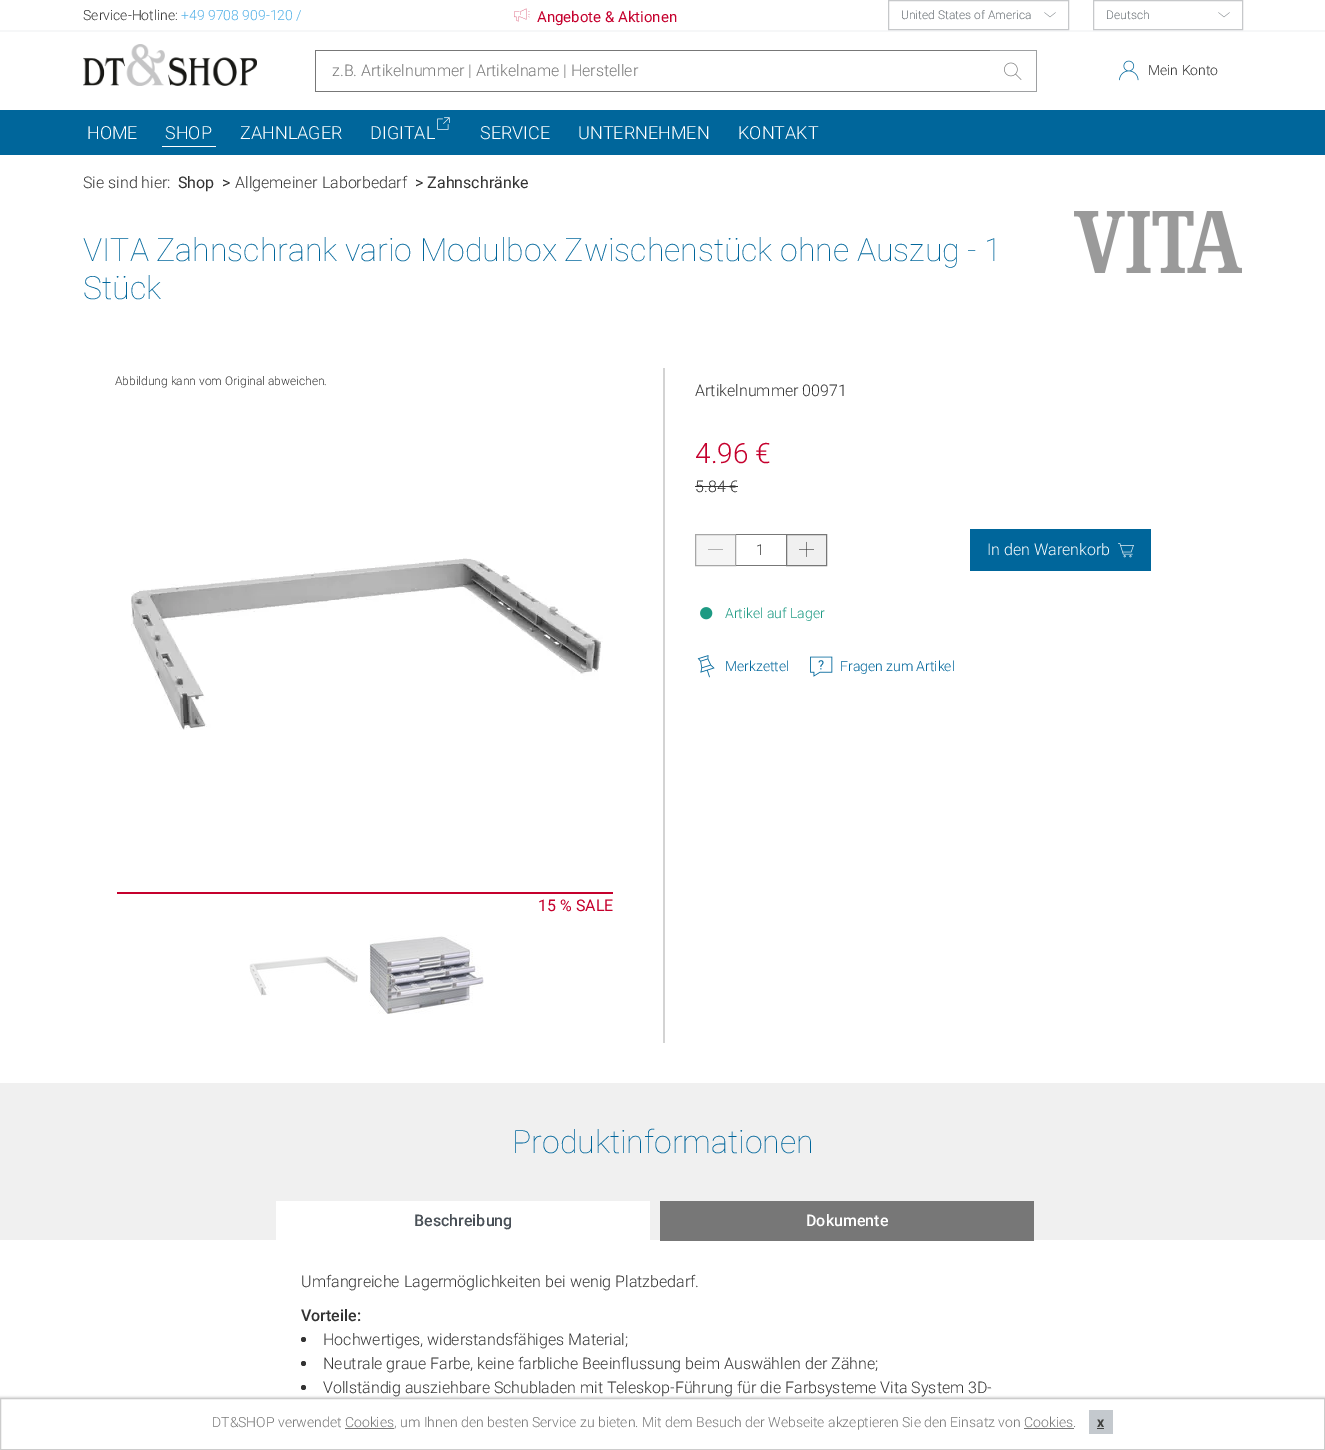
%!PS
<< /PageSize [1325 1450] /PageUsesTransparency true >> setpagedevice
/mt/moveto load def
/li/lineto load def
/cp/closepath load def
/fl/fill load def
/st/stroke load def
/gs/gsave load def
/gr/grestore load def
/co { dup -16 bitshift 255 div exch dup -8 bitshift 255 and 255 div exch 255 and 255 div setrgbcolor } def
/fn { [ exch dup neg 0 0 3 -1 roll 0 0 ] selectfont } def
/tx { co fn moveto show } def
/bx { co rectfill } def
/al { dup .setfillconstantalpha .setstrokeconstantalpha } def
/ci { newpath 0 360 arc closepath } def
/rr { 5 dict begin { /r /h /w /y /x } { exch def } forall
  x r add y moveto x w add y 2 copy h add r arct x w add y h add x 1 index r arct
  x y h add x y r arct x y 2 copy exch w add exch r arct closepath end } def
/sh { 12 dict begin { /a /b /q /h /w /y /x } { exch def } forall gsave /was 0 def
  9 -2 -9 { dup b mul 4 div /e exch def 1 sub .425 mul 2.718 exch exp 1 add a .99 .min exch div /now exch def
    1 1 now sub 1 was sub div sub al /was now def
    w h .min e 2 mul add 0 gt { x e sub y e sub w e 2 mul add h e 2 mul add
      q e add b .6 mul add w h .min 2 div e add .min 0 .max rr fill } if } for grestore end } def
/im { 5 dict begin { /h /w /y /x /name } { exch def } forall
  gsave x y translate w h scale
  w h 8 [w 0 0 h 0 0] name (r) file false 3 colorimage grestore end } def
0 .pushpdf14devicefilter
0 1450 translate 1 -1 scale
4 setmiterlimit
0 0 1325 1450 16#FFFFFF bx
0 30 1325 2 16#F6F7F8 bx
(media/1.raw) 514 8 16 14 im
16#C6C8CA co
888.5 .5 180 29 rectstroke
(media/2.raw) 1044 12 12 6 im
1093.5 .5 149 29 rectstroke
(media/2.raw) 1218 12 12 6 im
(media/3.raw) 83 44 174 42 im
315 50 675 1 16#777777 bx
315 91 675 1 16#777777 bx
315 50 1 42 16#777777 bx
990 50 47 1 16#9EA0A2 bx
1036 50 1 42 16#9EA0A2 bx
990 91 47 1 16#9EA0A2 bx
(media/4.raw) 1004 62 18 18 im
(media/5.raw) 1119 60 20 21 im
0 110 1325 45 16#00669B bx
162 146 54 1 16#FFFFFF bx
(media/6.raw) 437 117 13 13 im
(media/7.raw) 1074 211 168 62 im
(media/8.raw) 131 558 472 172 im
117 892 496 2 16#C5002D bx
(media/9.raw) 249 956 109 40 im
(media/10.raw) 369 935 115 79 im
663 368 2 675 16#D3D3D3 bx
695 486 43 1 16#333333 bx
16#F5F5F5 co
695.5 534.5 mt 735.5 534.5 li 735.5 565.5 li 695.5 565.5 li cp gs fl gr
16#A7A7A7 co
st
16#7A7A7A co
708 549 mt 723 549 li 723 549.5 li 708 549.5 li cp fl
736 534 50 1 16#777777 bx
736 565 50 1 16#777777 bx
16#F0F0F0 co
786.5 534.5 mt 826.5 534.5 li 826.5 565.5 li 786.5 565.5 li cp gs fl gr
16#777777 co
st
(media/11.raw) 799 541 15 16 im
970 529 181 42 16#00669B bx
(media/12.raw) 1118 543 16 15 im
(media/13.raw) 700 607 13 13 im
(media/14.raw) 697 655 18 23 im
(media/15.raw) 810 656 23 21 im
0 1083 1325 157 16#F0F0F0 bx
276 1201 374 39 16#FFFFFF bx
660 1201 374 40 16#777777 bx
16#333333 co
303.5 1339.5 2.5 ci fl
303.5 1363.5 2.5 ci fl
303.5 1387.5 2.5 ci fl
16#B1B1B1 co
0 1398 1325 52 0 1.5 1 sh
16#FFFFFF co
.5 1398.5 mt 1324.5 1398.5 li 1324.5 1449.5 li .5 1449.5 li cp gs fl gr
16#CCCCCC co
st
345 1428 49 1 16#777777 bx
1024 1428 50 1 16#777777 bx
1089 1410 24 24 16#C4C9CE bx
1097 1428 7 1 16#40413F bx
(Service-Hotline:) 83 20 /Roboto-Light 14 16#333333 tx
(+49 9708 909-120 /) 181 20 /Roboto-Light 14 16#53B1E7 tx
(Angebote & Aktionen) 537 22 /Roboto-Regular 15 16#C5002D tx
(United States of America) 901 19 /Roboto-Light 12 16#686F74 tx
(Deutsch) 1106 19 /Roboto-Light 12 16#686F74 tx
(z.B. Artikelnummer | Artikelname | Hersteller) 332 76 /Roboto-Light 16 16#777777 tx
(Mein Konto) 1148 75 /Roboto-Light 14 16#333333 tx
(HOME) 87 139 /Roboto-Light 18 16#FFFFFF tx
(SHOP) 165 139 /Roboto-Light 18 16#FFFFFF tx
(ZAHNLAGER) 240 139 /Roboto-Light 18 16#FFFFFF tx
(DIGITAL) 370 139 /Roboto-Light 18 16#FFFFFF tx
(SERVICE) 480 139 /Roboto-Light 18 16#FFFFFF tx
(UNTERNEHMEN) 578 139 /Roboto-Light 18 16#FFFFFF tx
(KONTAKT) 738 139 /Roboto-Light 18 16#FFFFFF tx
(Sie sind hier:) 83 188 /Roboto-Light 16 16#333333 tx
(Shop) 178 188 /Roboto-Regular 16 16#333333 tx
(>) 222 188 /Roboto-Regular 16 16#333333 tx
(Allgemeiner Laborbedarf) 235 188 /Roboto-Light 16 16#333333 tx
(> Zahnschränke) 415 188 /Roboto-Regular 16 16#333333 tx
(VITA Zahnschrank vario Modulbox Zwischenstück ohne Auszug - 1) 83 261 /Roboto-Thin 32 16#00669B tx
(Stück) 83 299 /Roboto-Thin 32 16#00669B tx
(Abbildung kann vom Original abweichen.) 115 385 /Roboto-Light 12 16#333333 tx
(15 % SALE) 538 911 /Roboto-Regular 16 16#C5002D tx
(Artikelnummer 00971) 695 396 /Roboto-Light 16 16#333333 tx
(4.96 €) 695 463 /Roboto-Light 28 16#C5002D tx
(5.84 €) 695 492 /Roboto-Light 16 16#333333 tx
(1) 756 555 /Roboto-Light 15 16#333333 tx
(In den Warenkorb) 987 555 /Roboto-Light 16 16#FFFFFF tx
(Artikel auf Lager) 725 618 /Roboto-Light 14 16#1D9A83 tx
(Merkzettel) 725 671 /Roboto-Light 14 16#00669B tx
(Fragen zum Artikel) 840 671 /Roboto-Light 14 16#00669B tx
(Produktinformationen) 512 1153 /Roboto-Thin 32 16#00669B tx
(Beschreibung) 414 1226 /Roboto-Medium 16 16#495057 tx
(Dokumente) 806 1226 /Roboto-Medium 16 16#FFFFFF tx
(Umfangreiche Lagermöglichkeiten bei wenig Platzbedarf.) 301 1287 /Roboto-Light 16 16#333333 tx
(Vorteile:) 301 1321 /Roboto-Medium 16 16#333333 tx
(Hochwertiges, widerstandsfähiges Material;) 323 1345 /Roboto-Light 16 16#333333 tx
(Neutrale graue Farbe, keine farbliche Beeinflussung beim Auswählen der Zähne;) 323 1369 /Roboto-Light 16 16#333333 tx
(Vollständig ausziehbare Schubladen mit Teleskop-Führung für die Farbsysteme Vita System 3D-) 323 1393 /Roboto-Light 16 16#333333 tx
(DT&SHOP verwendet Cookies, um Ihnen den besten Service zu bieten. Mit dem Besuch der Webseite akzeptieren Sie den Einsatz von Cookies.) 212 1427 /Roboto-Light 14 16#777777 tx
(x) 1097 1427 /Roboto-Bold 14 16#40413F tx
.poppdf14devicefilter showpage
